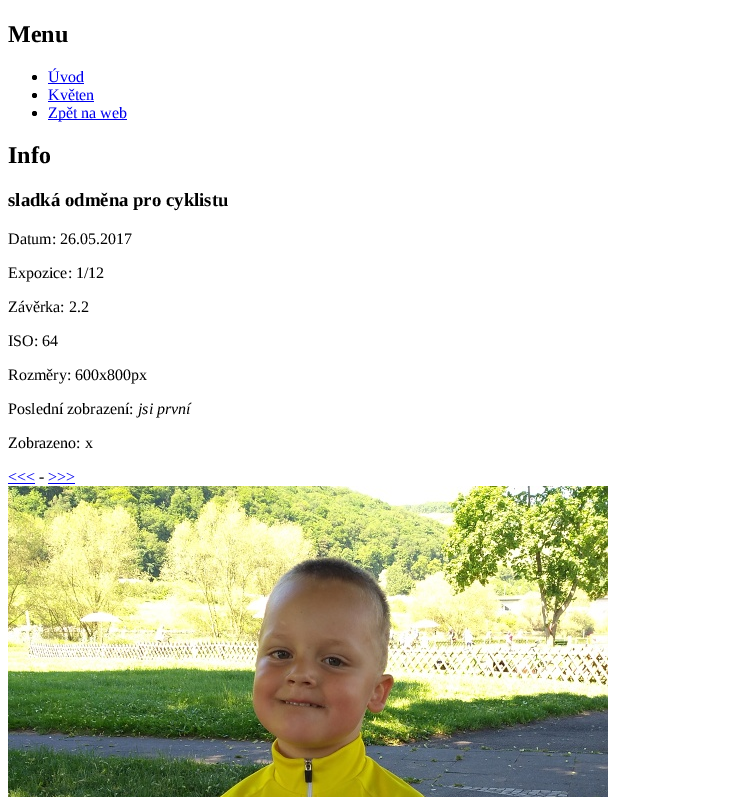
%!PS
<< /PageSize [729 797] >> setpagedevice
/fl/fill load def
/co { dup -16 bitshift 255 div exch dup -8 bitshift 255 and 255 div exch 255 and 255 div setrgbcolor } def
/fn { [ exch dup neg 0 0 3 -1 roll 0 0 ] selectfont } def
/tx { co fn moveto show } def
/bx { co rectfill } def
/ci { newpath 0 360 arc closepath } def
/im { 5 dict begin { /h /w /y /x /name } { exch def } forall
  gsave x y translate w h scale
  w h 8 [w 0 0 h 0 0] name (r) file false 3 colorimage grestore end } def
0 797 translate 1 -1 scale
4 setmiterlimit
0 0 729 797 16#FFFFFF bx
16#000000 co
34.5 77.5 2.5 ci fl
48 83 36 1 16#0000EE bx
16#000000 co
34.5 95.5 2.5 ci fl
48 101 46 1 16#0000EE bx
16#000000 co
34.5 113.5 2.5 ci fl
48 119 79 1 16#0000EE bx
8 483 27 1 16#0000EE bx
48 483 27 1 16#0000EE bx
(media/1.raw) 8 486 600 311 im
(Menu) 8 42 /LiberationSerif-Bold 24 16#000000 tx
(Úvod) 48 82 /LiberationSerif-Regular 16 16#0000EE tx
(Květen) 48 100 /LiberationSerif-Regular 16 16#0000EE tx
(Zpět na web) 48 118 /LiberationSerif-Regular 16 16#0000EE tx
(Info) 8 163 /LiberationSerif-Bold 24 16#000000 tx
(sladká odměna pro cyklistu) 8 206 /LiberationSerif-Bold 18.75 16#000000 tx
(Datum: 26.05.2017) 8 244 /LiberationSerif-Regular 16 16#000000 tx
(Expozice: 1/12) 8 278 /LiberationSerif-Regular 16 16#000000 tx
(Závěrka: 2.2) 8 312 /LiberationSerif-Regular 16 16#000000 tx
(ISO: 64) 8 346 /LiberationSerif-Regular 16 16#000000 tx
(Rozměry: 600x800px) 8 380 /LiberationSerif-Regular 16 16#000000 tx
(Poslední zobrazení:) 8 414 /LiberationSerif-Regular 16 16#000000 tx
(jsi první) 138 414 /LiberationSerif-Italic 16 16#000000 tx
(Zobrazeno: x) 8 448 /LiberationSerif-Regular 16 16#000000 tx
(<<<) 8 482 /LiberationSerif-Regular 16 16#0000EE tx
(-) 39 482 /LiberationSerif-Regular 16 16#000000 tx
(>>>) 48 482 /LiberationSerif-Regular 16 16#0000EE tx
showpage
